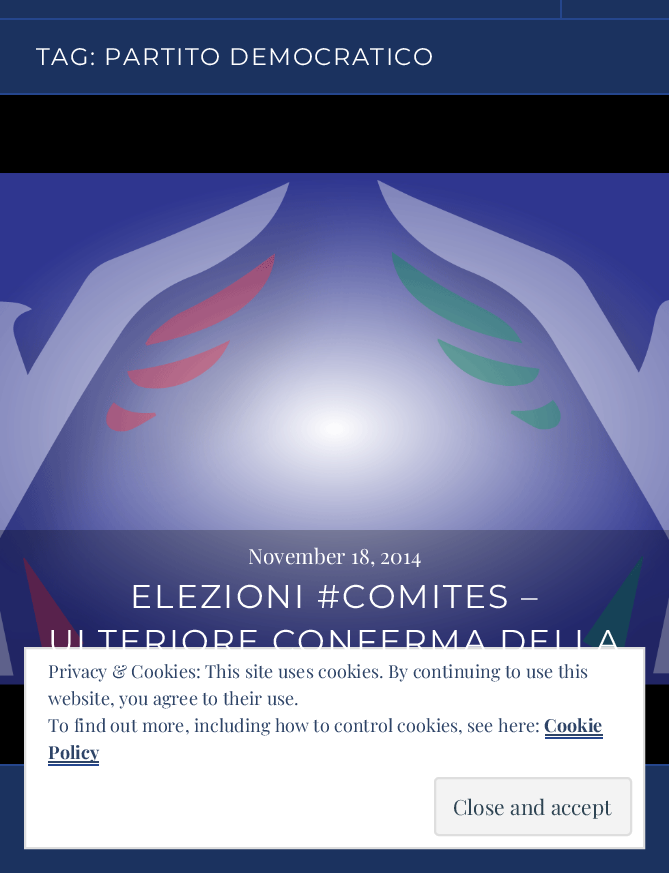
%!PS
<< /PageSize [669 873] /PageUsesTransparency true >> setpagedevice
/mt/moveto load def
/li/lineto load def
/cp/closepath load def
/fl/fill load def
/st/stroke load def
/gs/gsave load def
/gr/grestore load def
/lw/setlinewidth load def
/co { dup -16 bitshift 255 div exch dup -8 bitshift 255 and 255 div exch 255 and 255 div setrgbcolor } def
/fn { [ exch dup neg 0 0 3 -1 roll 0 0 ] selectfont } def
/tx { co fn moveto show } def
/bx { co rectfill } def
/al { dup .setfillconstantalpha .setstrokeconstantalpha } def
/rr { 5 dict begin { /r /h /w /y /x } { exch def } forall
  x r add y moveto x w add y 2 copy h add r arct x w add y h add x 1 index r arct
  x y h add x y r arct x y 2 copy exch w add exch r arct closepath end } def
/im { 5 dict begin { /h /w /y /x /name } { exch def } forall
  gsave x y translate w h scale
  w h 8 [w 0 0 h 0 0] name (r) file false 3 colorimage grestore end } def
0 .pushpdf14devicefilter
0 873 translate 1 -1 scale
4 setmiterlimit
0 0 669 873 16#1B325F bx
0 18 669 2 16#25468D bx
560 0 2 18 16#25468D bx
0 93 669 2 16#25468D bx
0 95 669 669 16#000000 bx
(media/1.raw) 0 173 669 512 im
0.25 al
0 530 669 155 16#000000 bx
1 al
0 764 669 2 16#25468D bx
16#FFFFFF co
25 648 mt 644 648 li 644 848 li 25 848 li cp gs fl gr
16#DEDEDE co
2 lw
st
545 737 58 2 16#25468D bx
545 734 58 2 16#2E4467 bx
48 764 51 2 16#25468D bx
48 761 51 2 16#2E4467 bx
16#F3F3F3 co
435 778 196 57 4 rr gs fl gr
16#DEDEDE co
st
/Montserrat-Regular 24 fn
16#FFFFFF co
36 65 mt 1.5 0 (TAG: PARTITO DEMOCRATICO) ashow
(November 18, 2014) 248 564 /PlayfairDisplay-Regular 21 16#FFFFFF tx
/Montserrat-Regular 33 fn
130 608 mt 2.1 0 (ELEZIONI #COMITES –) ashow
48 653 mt 2.1 0 (ULTERIORE CONFERMA DELLA) ashow
(Privacy & Cookies: This site uses cookies. By continuing to use this) 48 678 /PlayfairDisplay-Regular 18 16#2E4467 tx
(website, you agree to their use.) 48 705 /PlayfairDisplay-Regular 18 16#2E4467 tx
(To find out more, including how to control cookies, see here:) 48 732 /PlayfairDisplay-Regular 18 16#2E4467 tx
(Cookie) 544 732 /PlayfairDisplay-Bold 18 16#2E4467 tx
(Policy) 48 759 /PlayfairDisplay-Bold 18 16#2E4467 tx
(Close and accept) 453 815 /PlayfairDisplay-Regular 21 16#2E4453 tx
.poppdf14devicefilter showpage
